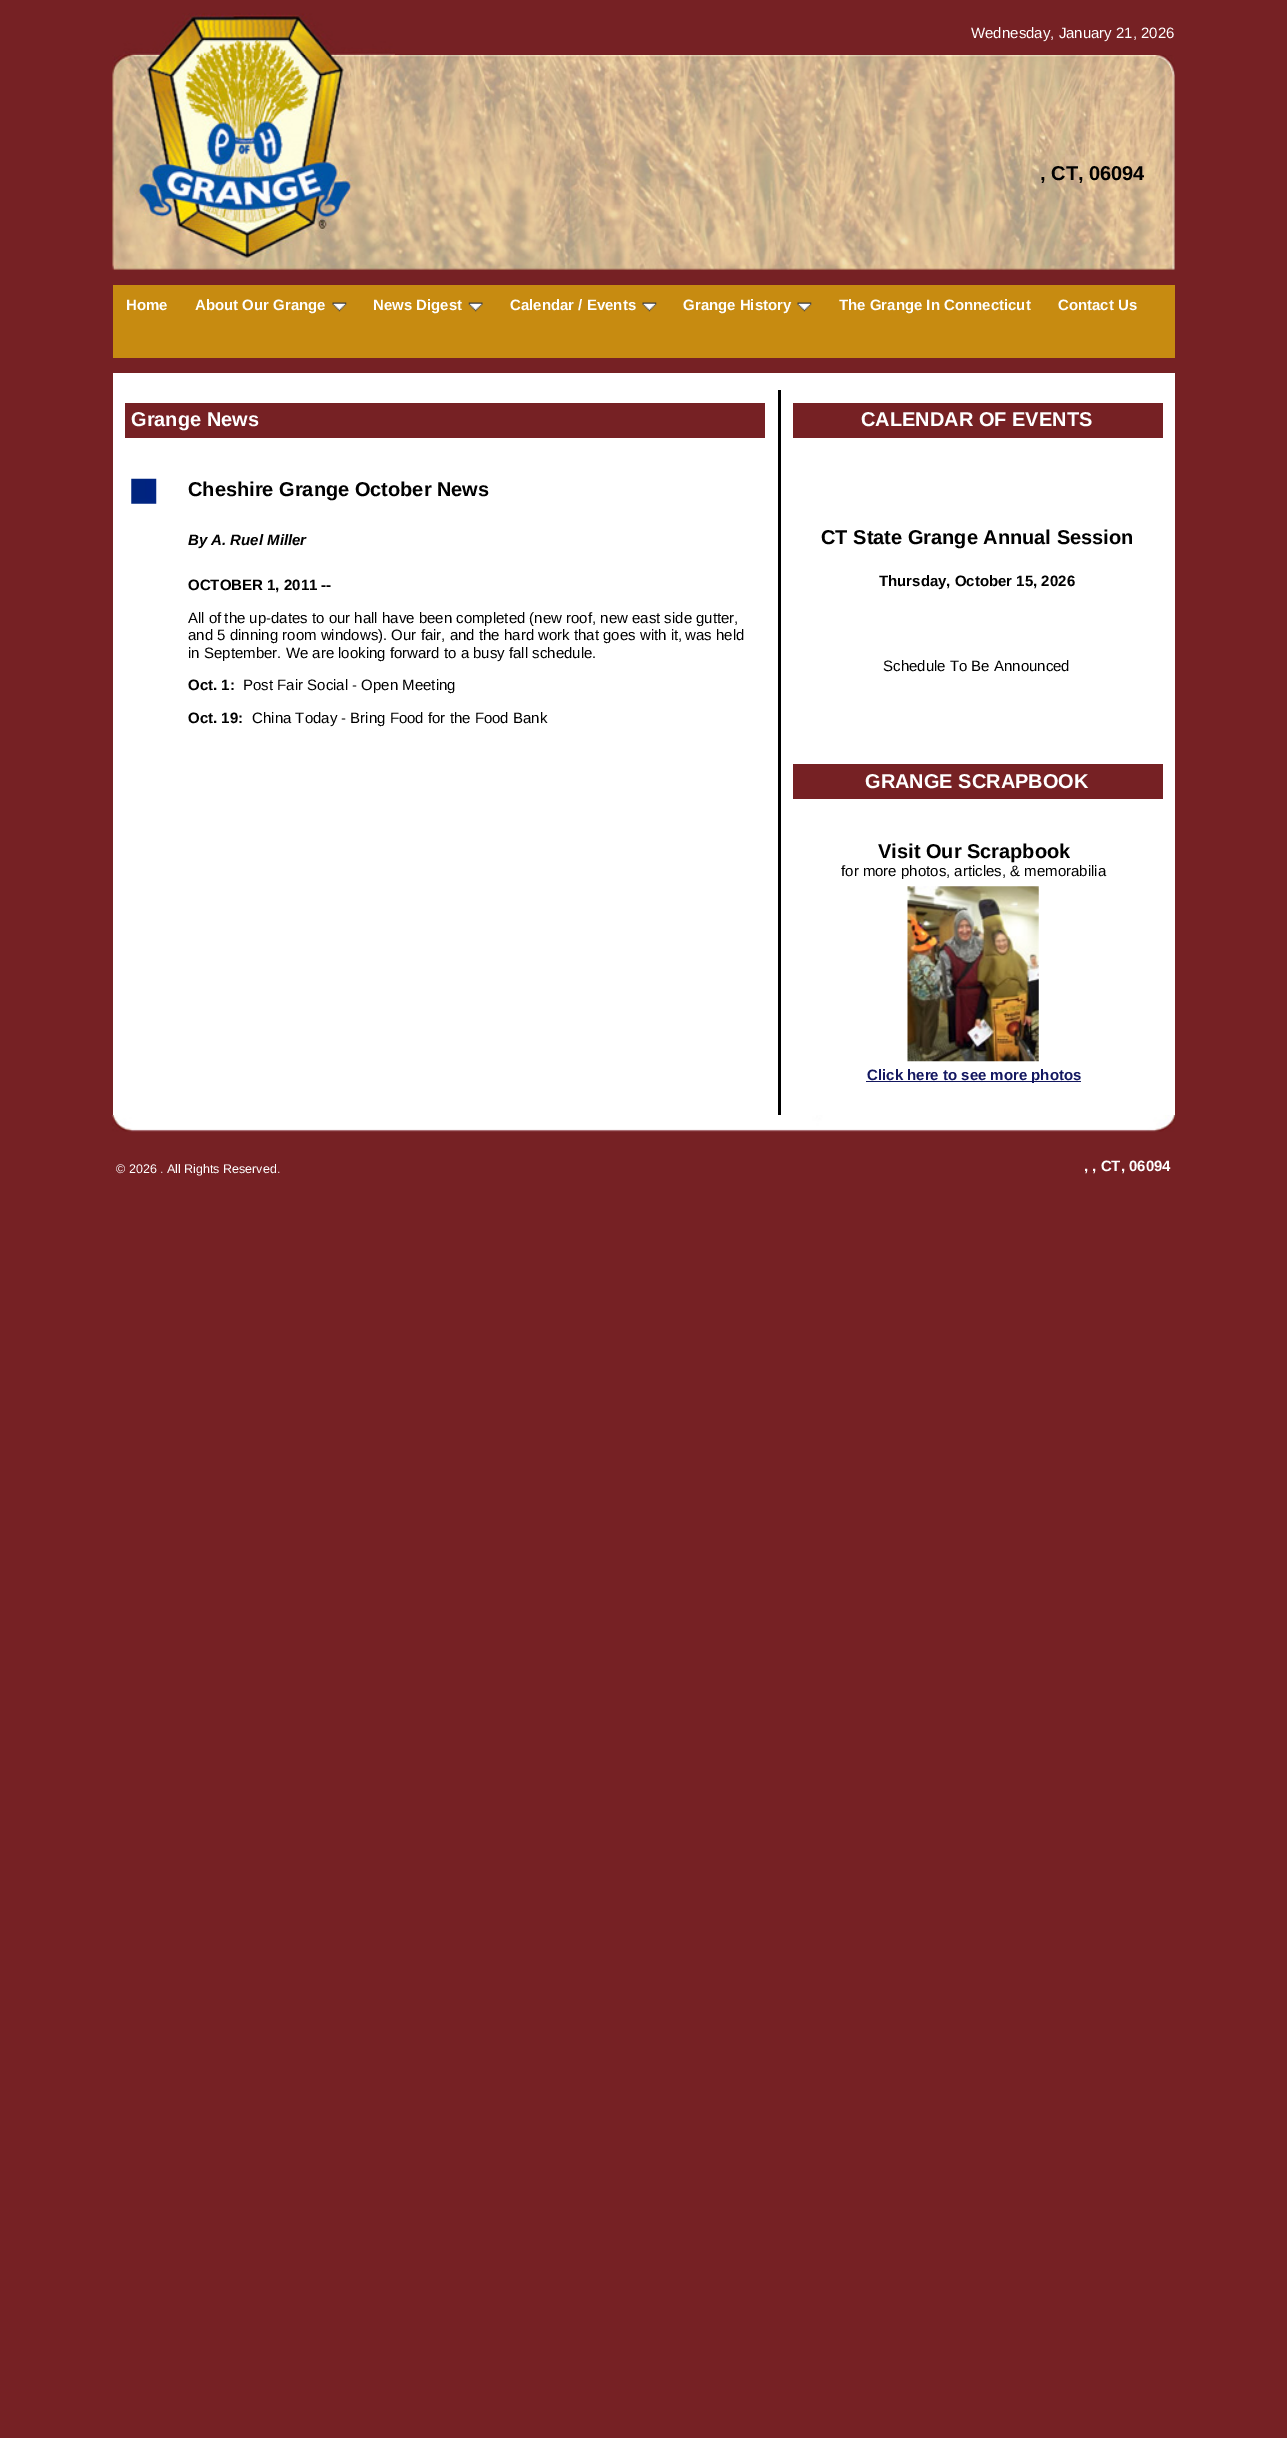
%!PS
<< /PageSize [1287 2438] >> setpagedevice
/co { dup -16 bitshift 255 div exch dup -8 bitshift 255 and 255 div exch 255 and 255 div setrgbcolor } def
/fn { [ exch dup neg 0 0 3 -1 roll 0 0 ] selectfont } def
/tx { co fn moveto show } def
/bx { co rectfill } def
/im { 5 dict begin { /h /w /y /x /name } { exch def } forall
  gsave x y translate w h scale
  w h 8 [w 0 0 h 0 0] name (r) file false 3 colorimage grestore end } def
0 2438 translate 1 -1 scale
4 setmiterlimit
0 0 1287 2438 16#762124 bx
(media/1.raw) 123 13 272 42 im
(media/2.raw) 112 55 273 215 im
(media/3.raw) 385 55 790 215 im
113 285 1062 73 16#C78B11 bx
(media/4.raw) 332 302 15 10 im
(media/5.raw) 468 302 15 10 im
(media/4.raw) 642 302 15 10 im
(media/4.raw) 797 302 15 10 im
113 373 1062 742 16#FFFFFF bx
125 403 640 35 16#762124 bx
(media/6.raw) 131 478 26 26 im
778 390 3 725 16#000000 bx
793 403 370 35 16#762124 bx
793 764 370 35 16#762124 bx
(media/7.raw) 907 886 132 176 im
866 1081 215 1 16#131760 bx
(media/8.raw) 112 1115 1063 17 im
(Wednesday, January 21, 2026) 971 38 /LiberationSans-Regular 15 16#FFFFFF tx
(, CT, 06094) 1040 180 /LiberationSans-Bold 20 16#000000 tx
(Home) 126 310 /LiberationSans-Bold 15 16#FFFFFF tx
(About Our Grange) 195 310 /LiberationSans-Bold 15 16#FFFFFF tx
(News Digest) 373 310 /LiberationSans-Bold 15 16#FFFFFF tx
(Calendar / Events) 510 310 /LiberationSans-Bold 15 16#FFFFFF tx
(Grange History) 683 310 /LiberationSans-Bold 15 16#FFFFFF tx
(The Grange In Connecticut) 839 310 /LiberationSans-Bold 15 16#FFFFFF tx
(Contact Us) 1058 310 /LiberationSans-Bold 15 16#FFFFFF tx
(Grange News) 131 426 /LiberationSans-Bold 20 16#FFFFFF tx
(Cheshire Grange October News) 188 496 /LiberationSans-Bold 20 16#000000 tx
(By A. Ruel Miller) 188 545 /LiberationSans-BoldItalic 15 16#000000 tx
(OCTOBER 1, 2011 --) 188 590 /LiberationSans-Bold 15 16#000000 tx
(All of the up-dates to our hall have been completed \(new roof, new east side gutter,) 188 623 /LiberationSans-Regular 15 16#000000 tx
(and 5 dinning room windows\). Our fair, and the hard work that goes with it, was held) 188 640 /LiberationSans-Regular 15 16#000000 tx
(in September. We are looking forward to a busy fall schedule.) 188 658 /LiberationSans-Regular 15 16#000000 tx
(Oct. 1:) 188 690 /LiberationSans-Bold 15 16#000000 tx
(Post Fair Social - Open Meeting) 243 690 /LiberationSans-Regular 15 16#000000 tx
(Oct. 19:) 188 723 /LiberationSans-Bold 15 16#000000 tx
(China Today - Bring Food for the Food Bank) 252 723 /LiberationSans-Regular 15 16#000000 tx
(CALENDAR OF EVENTS) 861 426 /LiberationSans-Bold 20 16#FFFFFF tx
(CT State Grange Annual Session) 821 544 /LiberationSans-Bold 20 16#000000 tx
(Thursday, October 15, 2026) 879 586 /LiberationSans-Bold 15 16#000000 tx
(Schedule To Be Announced) 883 671 /LiberationSans-Regular 15 16#000000 tx
(GRANGE SCRAPBOOK) 865 788 /LiberationSans-Bold 20 16#FFFFFF tx
(Visit Our Scrapbook) 878 858 /LiberationSans-Bold 20 16#000000 tx
(for more photos, articles, & memorabilia) 841 876 /LiberationSans-Regular 15 16#000000 tx
(Click here to see more photos) 867 1080 /LiberationSans-Bold 15 16#131760 tx
(© 2026 . All Rights Reserved.) 116 1173 /LiberationSans-Regular 12.5 16#FFFFFF tx
(, , CT, 06094) 1084 1171 /LiberationSans-Bold 15 16#FFFFFF tx
showpage
